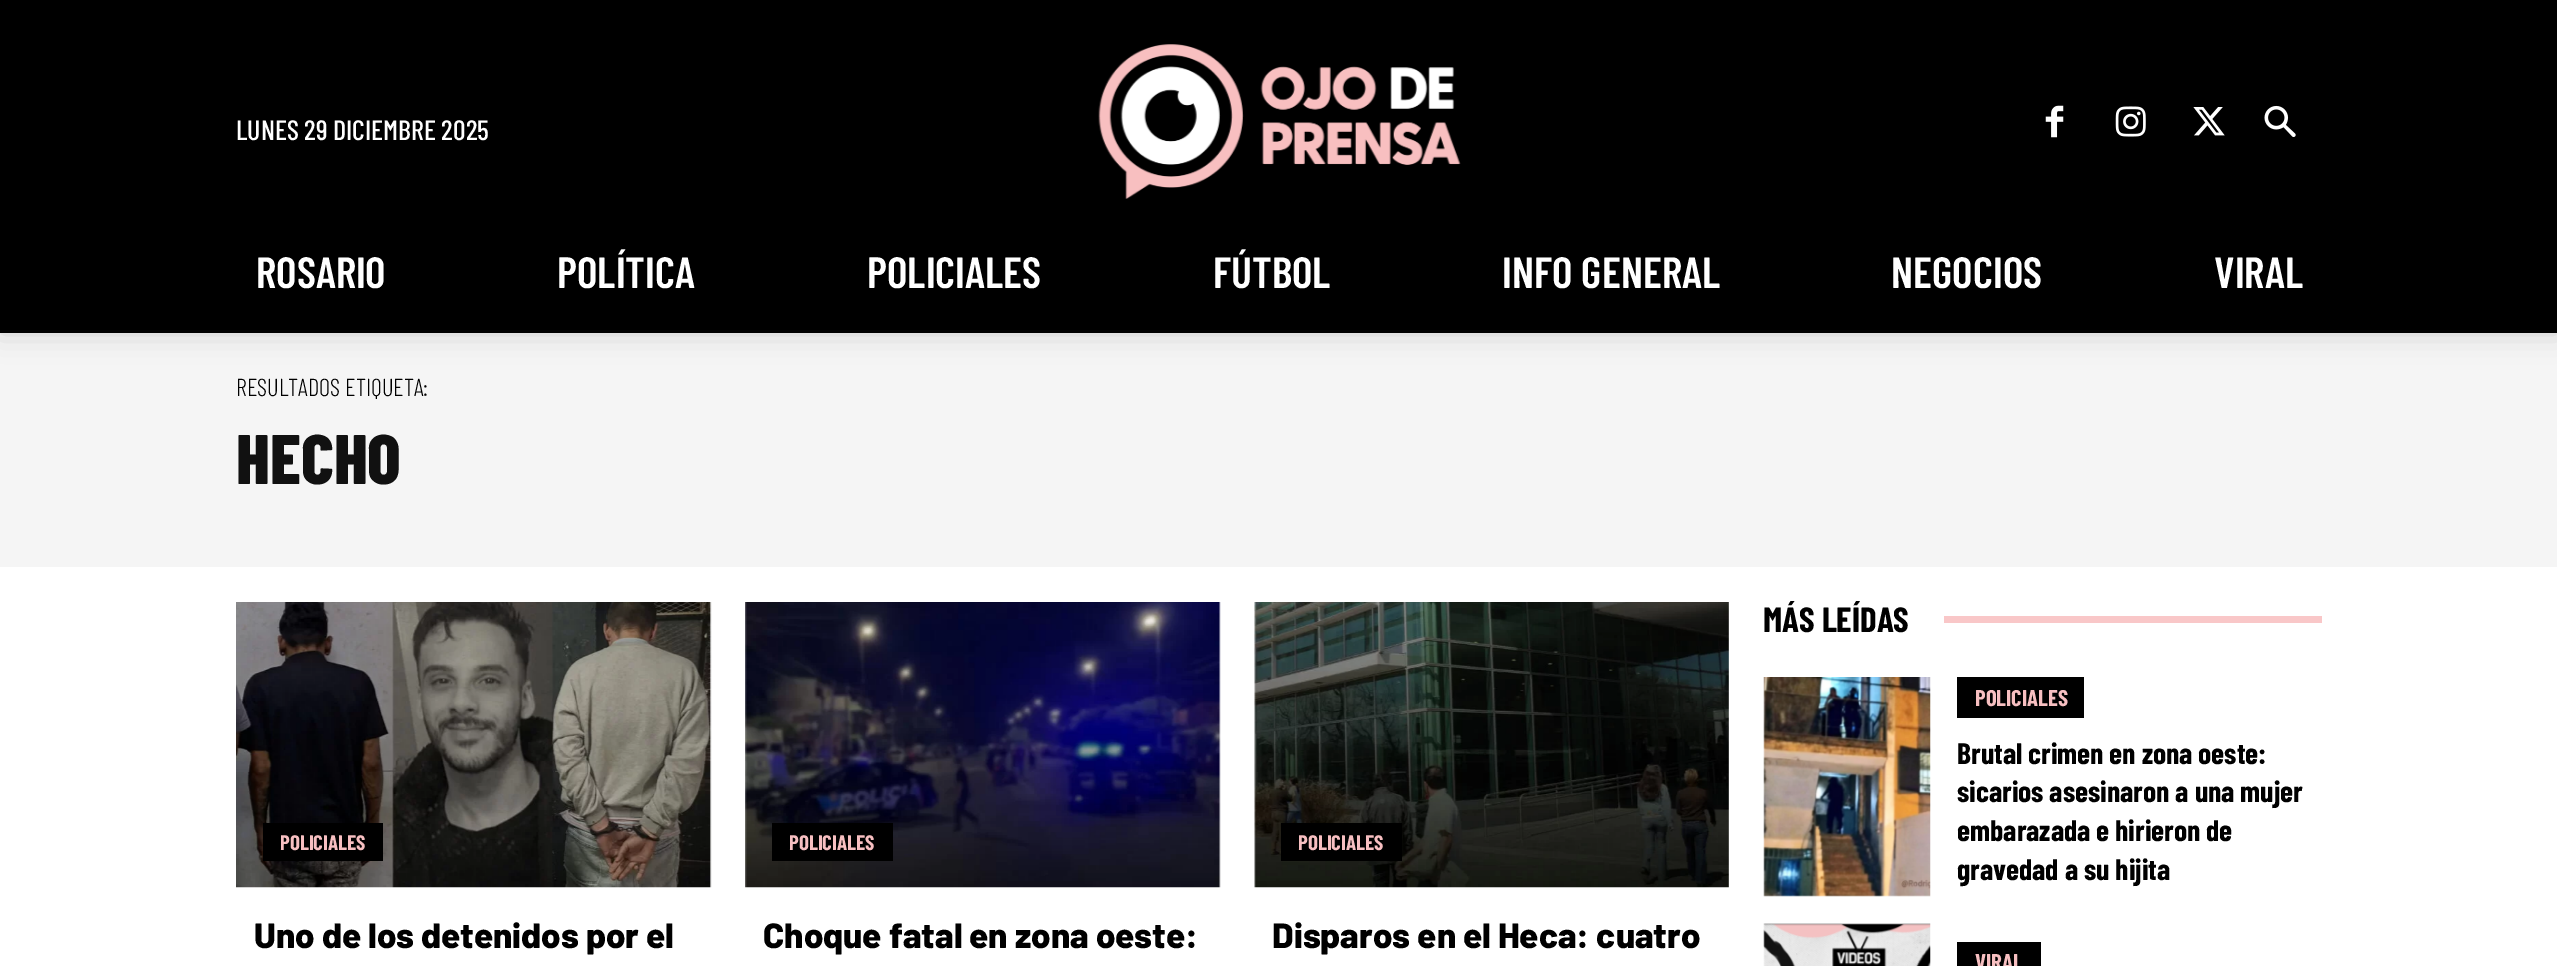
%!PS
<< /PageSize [2557 966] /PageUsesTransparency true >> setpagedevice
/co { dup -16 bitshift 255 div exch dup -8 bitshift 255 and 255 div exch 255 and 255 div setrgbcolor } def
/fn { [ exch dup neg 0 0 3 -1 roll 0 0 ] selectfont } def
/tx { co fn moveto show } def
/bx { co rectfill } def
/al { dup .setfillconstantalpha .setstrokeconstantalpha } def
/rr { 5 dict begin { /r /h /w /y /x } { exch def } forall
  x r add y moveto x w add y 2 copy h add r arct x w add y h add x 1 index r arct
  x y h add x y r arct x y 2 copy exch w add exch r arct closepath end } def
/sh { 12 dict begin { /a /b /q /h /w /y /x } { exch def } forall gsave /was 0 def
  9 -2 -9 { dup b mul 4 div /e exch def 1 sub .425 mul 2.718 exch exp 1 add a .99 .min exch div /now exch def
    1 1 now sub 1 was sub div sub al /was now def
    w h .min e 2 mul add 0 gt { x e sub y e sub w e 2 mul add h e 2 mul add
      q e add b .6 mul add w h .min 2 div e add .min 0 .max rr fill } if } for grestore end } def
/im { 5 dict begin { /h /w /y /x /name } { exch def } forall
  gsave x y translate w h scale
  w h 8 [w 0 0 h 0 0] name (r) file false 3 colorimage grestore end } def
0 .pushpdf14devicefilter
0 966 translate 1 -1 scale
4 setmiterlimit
0 0 2557 966 16#FFFFFF bx
0 333 2557 234 16#F5F5F5 bx
16#000000 co
0 0 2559 333 0 14 .16 sh
0 0 2557 333 16#000000 bx
(media/1.raw) 1098 44 363 155 im
(media/2.raw) 2045 105 19 33 im
(media/3.raw) 2115 106 31 31 im
(media/4.raw) 2193 107 32 29 im
(media/5.raw) 2264 105 32 32 im
(media/6.raw) 236 602 476 286 im
263 823 120 38 16#000000 bx
(media/7.raw) 745 602 476 286 im
772 823 121 38 16#000000 bx
(media/8.raw) 1254 602 475 286 im
1281 823 121 38 16#000000 bx
1944 616 378 7 16#F9C7C8 bx
(media/9.raw) 1763 677 168 220 im
1957 677 127 41 16#000000 bx
(media/10.raw) 1763 923 168 43 im
1957 942 84 24 16#000000 bx
(LUNES 29 DICIEMBRE 2025) 236 140 /BarlowCondensed-Medium 28 16#FFFFFF tx
(ROSARIO) 256 288 /BarlowCondensed-SemiBold 43.75 16#FFFFFF tx
(POLÍTICA) 557 288 /BarlowCondensed-SemiBold 43.75 16#FFFFFF tx
(POLICIALES) 867 288 /BarlowCondensed-SemiBold 43.75 16#FFFFFF tx
(FÚTBOL) 1213 288 /BarlowCondensed-SemiBold 43.75 16#FFFFFF tx
(INFO GENERAL) 1502 288 /BarlowCondensed-SemiBold 43.75 16#FFFFFF tx
(NEGOCIOS) 1891 288 /BarlowCondensed-SemiBold 43.75 16#FFFFFF tx
(VIRAL) 2214 288 /BarlowCondensed-SemiBold 43.75 16#FFFFFF tx
(RESULTADOS ETIQUETA:) 236 396 /BarlowCondensed-Light 24.5 16#000000 tx
(HECHO) 236 484 /BarlowCondensed-ExtraBold 70 16#111111 tx
(POLICIALES) 280 850 /BarlowCondensed-Bold 21 16#F7BFC1 tx
(Uno de los detenidos por el) 254 948 /Barlow-ExtraBold 35 16#000000 tx
(POLICIALES) 789 850 /BarlowCondensed-Bold 21 16#F7BFC1 tx
(Choque fatal en zona oeste:) 763 948 /Barlow-ExtraBold 35 16#000000 tx
(POLICIALES) 1298 850 /BarlowCondensed-Bold 21 16#F7BFC1 tx
(Disparos en el Heca: cuatro) 1272 948 /Barlow-ExtraBold 35 16#000000 tx
(MÁS LEÍDAS) 1763 632 /BarlowCondensed-Bold 35 16#000000 tx
(POLICIALES) 1975 706 /BarlowCondensed-Bold 22.75 16#F7BFC1 tx
(Brutal crimen en zona oeste:) 1957 764 /BarlowCondensed-Bold 29.75 16#000000 tx
(sicarios asesinaron a una mujer) 1957 802 /BarlowCondensed-Bold 29.75 16#000000 tx
(embarazada e hirieron de) 1957 841 /BarlowCondensed-Bold 29.75 16#000000 tx
(gravedad a su hijita) 1957 880 /BarlowCondensed-Bold 29.75 16#000000 tx
(VIRAL) 1975 970 /BarlowCondensed-Bold 22.75 16#F7BFC1 tx
.poppdf14devicefilter showpage
